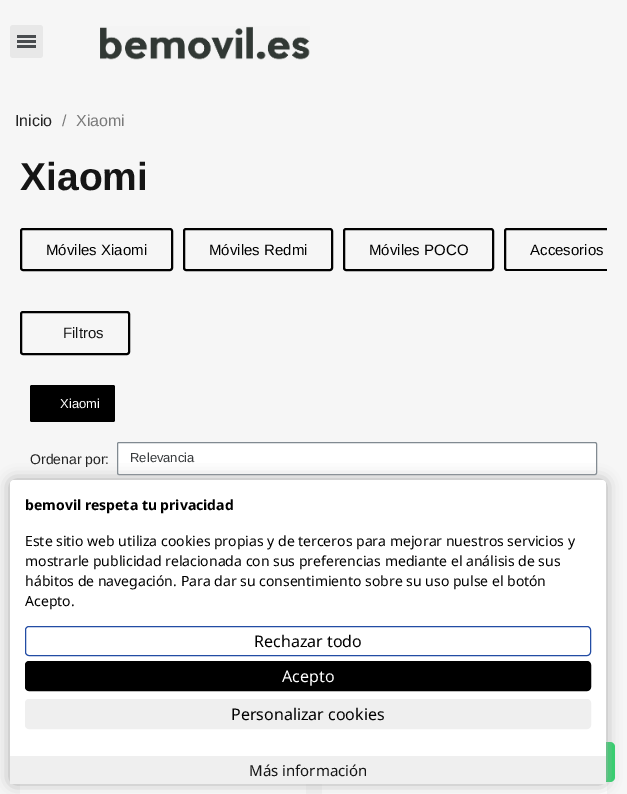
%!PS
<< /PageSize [627 794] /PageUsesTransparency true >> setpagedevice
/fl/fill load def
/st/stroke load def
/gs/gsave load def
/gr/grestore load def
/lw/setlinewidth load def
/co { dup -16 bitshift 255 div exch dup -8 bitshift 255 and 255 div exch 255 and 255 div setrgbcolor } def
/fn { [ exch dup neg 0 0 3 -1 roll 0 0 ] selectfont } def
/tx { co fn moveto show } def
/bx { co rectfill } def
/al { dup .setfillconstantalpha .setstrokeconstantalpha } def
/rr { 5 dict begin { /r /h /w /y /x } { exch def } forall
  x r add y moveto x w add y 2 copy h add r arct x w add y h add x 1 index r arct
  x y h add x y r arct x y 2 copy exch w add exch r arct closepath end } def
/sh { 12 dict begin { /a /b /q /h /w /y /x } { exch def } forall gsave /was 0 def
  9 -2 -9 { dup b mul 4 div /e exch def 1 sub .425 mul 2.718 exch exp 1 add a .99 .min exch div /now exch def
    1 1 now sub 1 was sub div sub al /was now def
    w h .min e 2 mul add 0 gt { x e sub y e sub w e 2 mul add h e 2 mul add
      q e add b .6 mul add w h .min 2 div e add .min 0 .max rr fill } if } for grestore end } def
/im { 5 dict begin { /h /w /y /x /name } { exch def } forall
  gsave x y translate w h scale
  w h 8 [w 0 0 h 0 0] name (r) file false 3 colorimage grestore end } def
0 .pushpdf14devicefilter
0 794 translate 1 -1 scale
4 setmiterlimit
0 0 627 794 16#F6F6F6 bx
16#E8E8E8 co
10 25 33 33 3 rr fl
17 40 19 3 16#494C4F bx
17 35 19 3 16#494C4F bx
17 45 19 3 16#494C4F bx
(media/1.raw) 100 26 210 34 im
16#000000 co
2 lw
21 229 151 41 2 rr st
184 229 148 41 2 rr st
344 229 149 41 2 rr st
gs
20 228 587 43 rectclip
505 229 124 41 2 rr st
gr
21 312 108 42 2 rr st
30 385 85 37 2 rr fl
16#FFFFFF co
117.5 442.5 479 32 1.5 rr gs fl gr
16#818A91 co
1 lw
st
20 784 286 10 16#FFFFFF bx
322 485 285 309 16#FFFFFF bx
16#25D366 co
575 742 40 40 5 rr fl
16#AAAAAA co
10 480 596 304 4 7.5 1 sh
16#FFFFFF co
10 480 596 304 4 rr fl
16#234CA4 co
25.5 626.5 565 29 3.5 rr st
16#000000 co
26 662 564 28 3 rr gs fl gr
2 lw
st
16#EFEFEF co
26 700 564 28 3 rr gs fl gr
st
10 756 596 28 16#EFEFEF bx
(Inicio) 15 126 /LiberationSans-Regular 16 16#232323 tx
(/) 62 126 /LiberationSans-Regular 16 16#7A7A7A tx
(Xiaomi) 76 126 /LiberationSans-Regular 16 16#7A7A7A tx
(Xiaomi) 20 190 /LiberationSans-Bold 39 16#151515 tx
(Móviles Xiaomi) 46 255 /LiberationSans-Regular 15 16#000000 tx
(Móviles Redmi) 209 255 /LiberationSans-Regular 15 16#000000 tx
(Móviles POCO) 369 255 /LiberationSans-Regular 15 16#000000 tx
(Accesorios) 530 255 /LiberationSans-Regular 15 16#000000 tx
(Filtros) 63 338 /LiberationSans-Regular 15 16#151515 tx
(Xiaomi) 60 408 /LiberationSans-Regular 13 16#FFFFFF tx
(Ordenar por:) 30 464 /LiberationSans-Regular 14 16#232323 tx
(Relevancia) 130 462 /LiberationSans-Regular 13 16#373A3C tx
(bemovil respeta tu privacidad) 25 510 /NotoSans-Bold 14 16#000000 tx
(Este sitio web utiliza cookies propias y de terceros para mejorar nuestros servicios y) 25 546 /NotoSans-Regular 14 16#000000 tx
(mostrarle publicidad relacionada con sus preferencias mediante el análisis de sus) 25 566 /NotoSans-Regular 14 16#000000 tx
(hábitos de navegación. Para dar su consentimiento sobre su uso pulse el botón) 25 586 /NotoSans-Regular 14 16#000000 tx
(Acepto.) 25 606 /NotoSans-Regular 14 16#000000 tx
(Rechazar todo) 254 647 /NotoSans-Regular 16 16#000000 tx
(Acepto) 282 682 /NotoSans-Regular 16 16#FFFFFF tx
(Personalizar cookies) 231 720 /NotoSans-Regular 16 16#000000 tx
(Más información) 249 776 /NotoSans-Regular 15 16#151515 tx
.poppdf14devicefilter showpage
